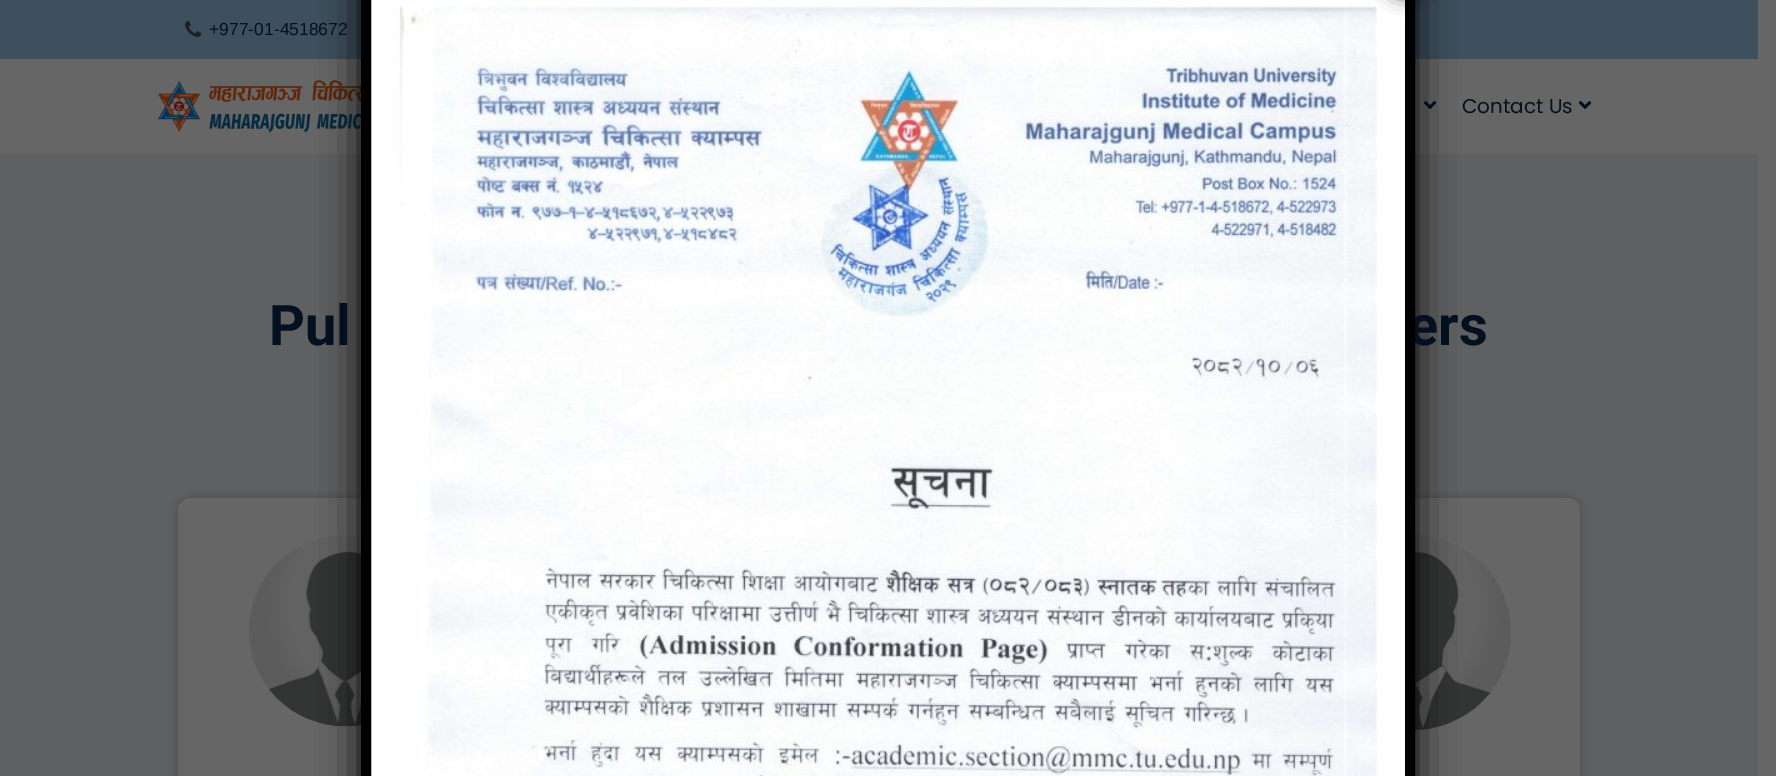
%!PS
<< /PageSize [1776 776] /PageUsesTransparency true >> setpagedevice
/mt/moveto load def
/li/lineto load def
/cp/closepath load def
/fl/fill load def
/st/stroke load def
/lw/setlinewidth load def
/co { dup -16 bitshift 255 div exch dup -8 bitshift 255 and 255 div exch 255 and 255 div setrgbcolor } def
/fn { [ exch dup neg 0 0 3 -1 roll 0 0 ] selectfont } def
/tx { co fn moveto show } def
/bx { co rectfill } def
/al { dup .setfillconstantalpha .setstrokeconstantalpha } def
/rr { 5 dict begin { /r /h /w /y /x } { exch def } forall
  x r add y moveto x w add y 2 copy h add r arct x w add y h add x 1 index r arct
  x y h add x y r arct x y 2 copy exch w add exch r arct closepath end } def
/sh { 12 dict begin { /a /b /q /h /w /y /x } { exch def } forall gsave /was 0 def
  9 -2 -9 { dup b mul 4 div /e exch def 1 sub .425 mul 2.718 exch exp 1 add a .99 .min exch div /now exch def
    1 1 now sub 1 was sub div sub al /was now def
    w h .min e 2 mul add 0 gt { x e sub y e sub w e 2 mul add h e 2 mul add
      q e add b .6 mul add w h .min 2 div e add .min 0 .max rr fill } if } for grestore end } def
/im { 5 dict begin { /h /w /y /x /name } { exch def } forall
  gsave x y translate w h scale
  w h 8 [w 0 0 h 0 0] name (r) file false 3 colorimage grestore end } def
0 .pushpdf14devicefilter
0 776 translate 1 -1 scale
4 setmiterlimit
0 0 1776 776 16#666666 bx
0 0 1758 59 16#3E4F5D bx
(media/3.raw) 158 80 203 53 im
(media/4.raw) 1423 101 14 8 im
0 154 1758 622 16#5F6061 bx
16#000000 co
178 498 333 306 13 5 .22 sh
16#666666 co
178 498 333 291 13 rr fl
(media/5.raw) 248 535 113 192 im
16#000000 co
1246 498 334 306 13 5 .22 sh
16#666666 co
1246 498 334 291 13 rr fl
(media/6.raw) 1415 535 96 195 im
16#020202 co
361 -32 1054 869 4 19 1 sh
371 0 1034 776 16#FFFFFF bx
(media/2.raw) 185 20 17 17 im
(media/4.raw) 1578 101 14 8 im
(+977-01-4518672) 209 35 /LiberationSans-Regular 17.5 16#03101F tx
(Contact Us) 1462 113 /Poppins-Regular 20 16#03101F tx
(Pul) 269 345 /Roboto-Bold 56 16#03101F tx
(ers) 1408 345 /Roboto-Bold 56 16#03101F tx
16#000000 co
10 lw
366 -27.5 mt 1410 -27.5 li 1410 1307.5 li 366 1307.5 li cp st
(media/1.raw) 394 0 984 776 im
16#020202 co
1388 -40 35 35 17.5 9.5 .75 sh
.poppdf14devicefilter showpage
